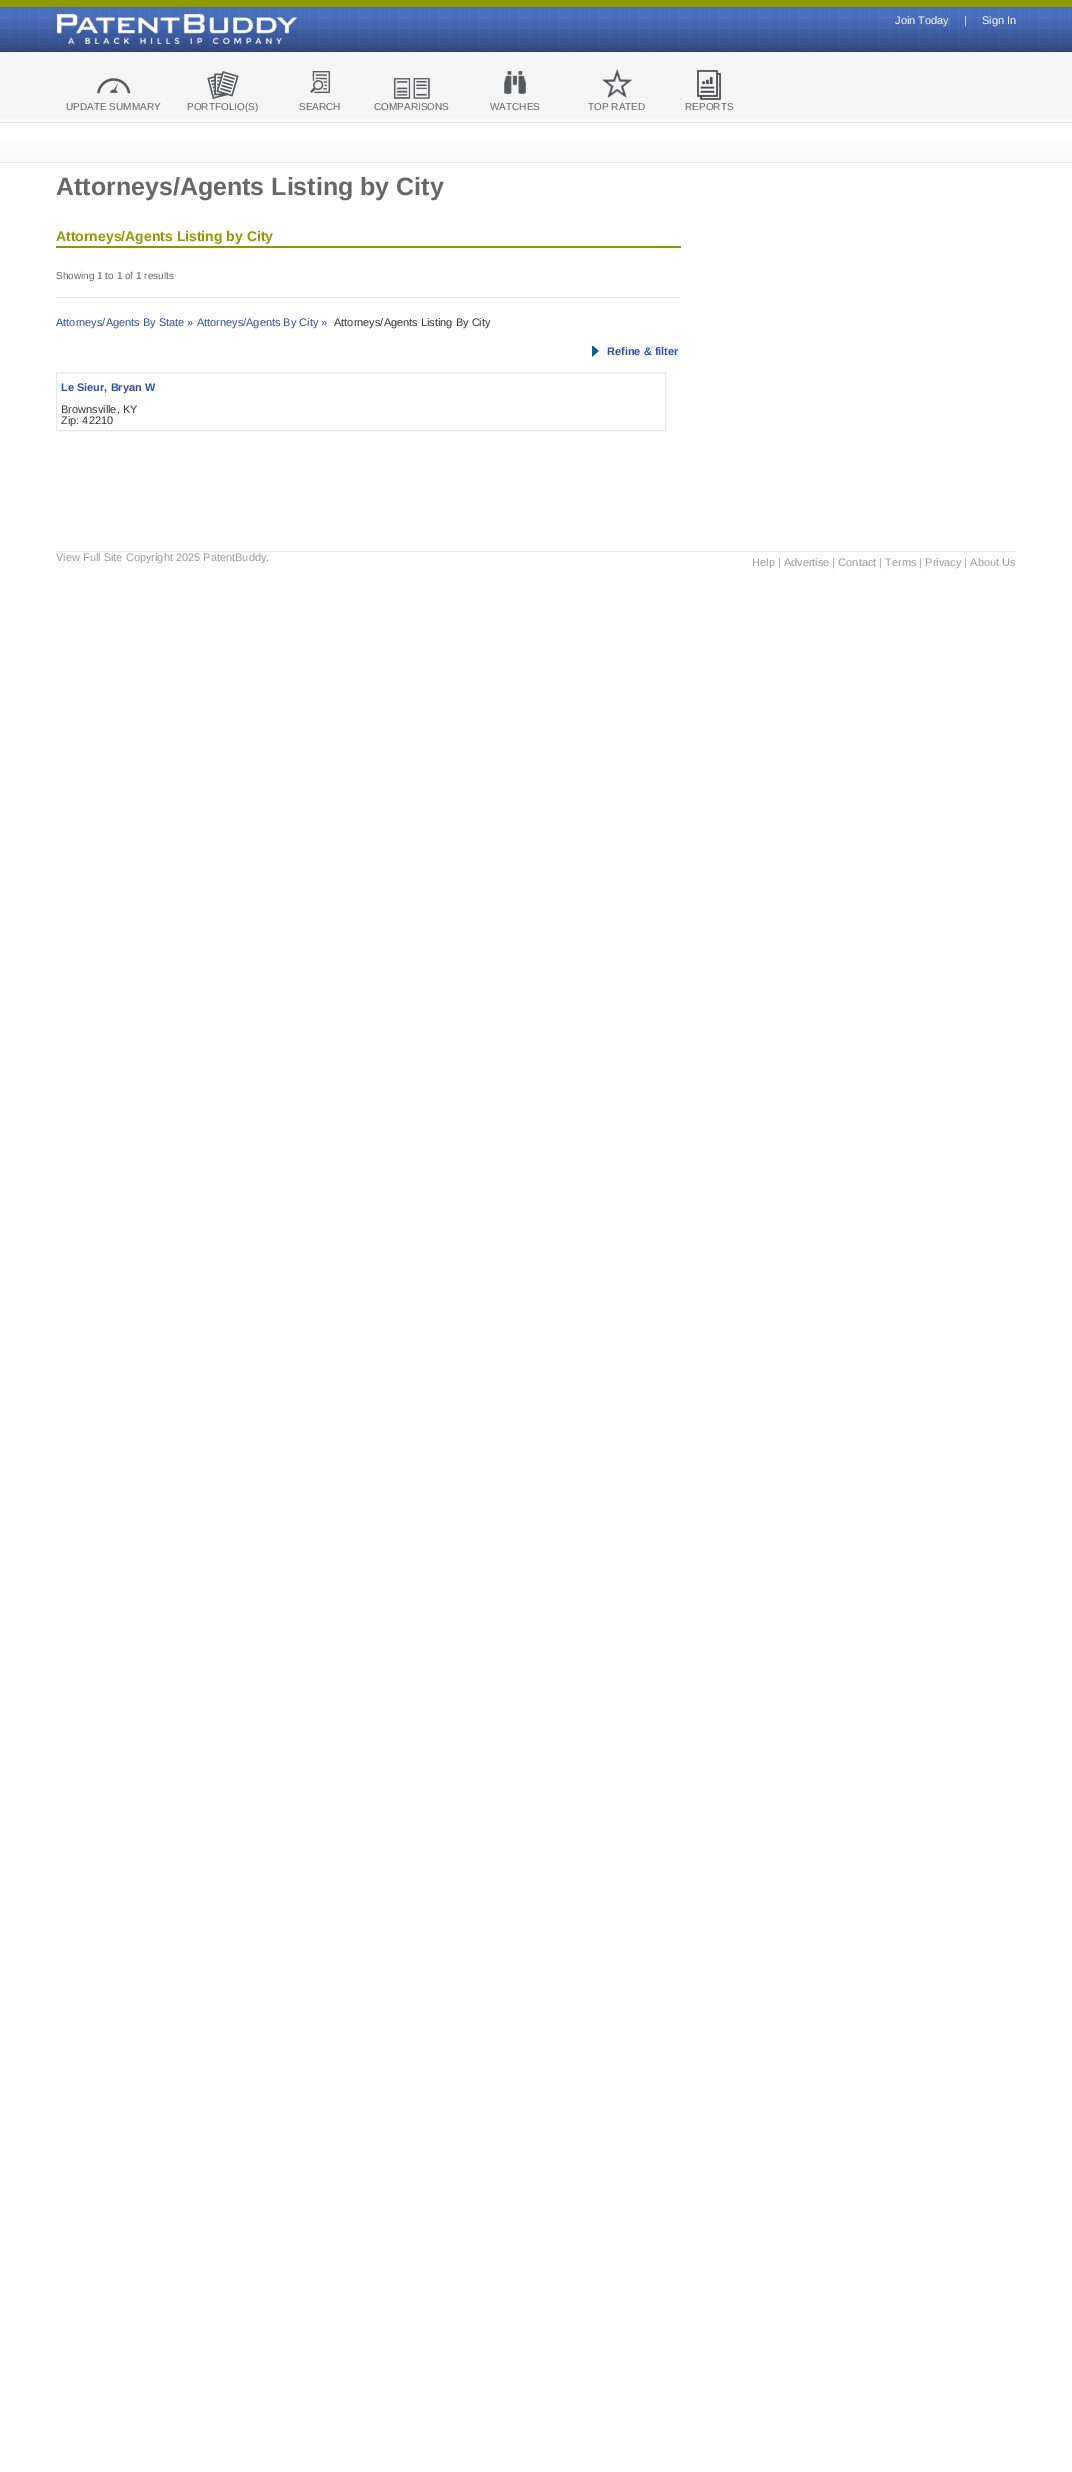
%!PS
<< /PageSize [1072 2472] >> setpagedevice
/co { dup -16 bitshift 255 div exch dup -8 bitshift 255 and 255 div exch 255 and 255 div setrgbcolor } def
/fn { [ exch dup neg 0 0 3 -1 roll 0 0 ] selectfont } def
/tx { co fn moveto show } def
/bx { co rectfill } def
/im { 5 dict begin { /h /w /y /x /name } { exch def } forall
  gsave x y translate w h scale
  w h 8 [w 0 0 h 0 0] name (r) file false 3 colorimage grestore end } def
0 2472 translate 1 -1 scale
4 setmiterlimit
0 0 1072 2472 16#FFFFFF bx
(media/1.raw) 0 0 1072 163 im
(media/2.raw) 57 14 240 30 im
(media/3.raw) 97 78 34 16 im
(media/4.raw) 207 71 32 28 im
(media/5.raw) 310 71 20 22 im
(media/6.raw) 394 78 36 21 im
(media/7.raw) 504 71 22 23 im
(media/8.raw) 602 69 30 29 im
(media/9.raw) 697 70 24 30 im
56 246 625 2 16#859900 bx
56 297 623 1 16#E5E5E5 bx
(media/10.raw) 592 346 7 11 im
16#E7E7E7 co
56.5 372.5 609 58 rectstroke
56 551 960 1 16#E6E6E6 bx
(Join Today) 895 24 /LiberationSans-Regular 11 16#FFFFFF tx
(|) 964 24 /LiberationSans-Regular 11 16#FFFFFF tx
(Sign In) 982 24 /LiberationSans-Regular 11 16#FFFFFF tx
(UPDATE SUMMARY) 66 110 /LiberationSans-Regular 10 16#666666 tx
(PORTFOLIO\(S\)) 187 110 /LiberationSans-Regular 10 16#666666 tx
(SEARCH) 299 110 /LiberationSans-Regular 10 16#666666 tx
(COMPARISONS) 374 110 /LiberationSans-Regular 10 16#666666 tx
(WATCHES) 490 110 /LiberationSans-Regular 10 16#666666 tx
(TOP RATED) 588 110 /LiberationSans-Regular 10 16#666666 tx
(REPORTS) 685 110 /LiberationSans-Regular 10 16#666666 tx
(Attorneys/Agents Listing by City) 56 195 /LiberationSans-Bold 25 16#666666 tx
(Attorneys/Agents Listing by City) 56 241 /LiberationSans-Bold 14 16#8F9900 tx
(Showing 1 to 1 of 1 results) 56 279 /LiberationSans-Regular 10 16#666666 tx
(Attorneys/Agents By State » Attorneys/Agents By City ») 56 326 /LiberationSans-Regular 11 16#2951A7 tx
(Attorneys/Agents Listing By City) 334 326 /LiberationSans-Regular 11 16#333333 tx
(Refine & filter) 607 355 /LiberationSans-Bold 11 16#2951A7 tx
(Le Sieur, Bryan W) 61 391 /LiberationSans-Bold 11 16#2951A7 tx
(Brownsville, KY) 61 413 /LiberationSans-Regular 11 16#333333 tx
(Zip: 42210) 61 424 /LiberationSans-Regular 11 16#333333 tx
(View Full Site Copyright 2025 PatentBuddy.) 56 561 /LiberationSans-Regular 11 16#9B9B9B tx
(Help | Advertise | Contact | Terms | Privacy | About Us) 752 566 /LiberationSans-Regular 11 16#9B9B9B tx
showpage
